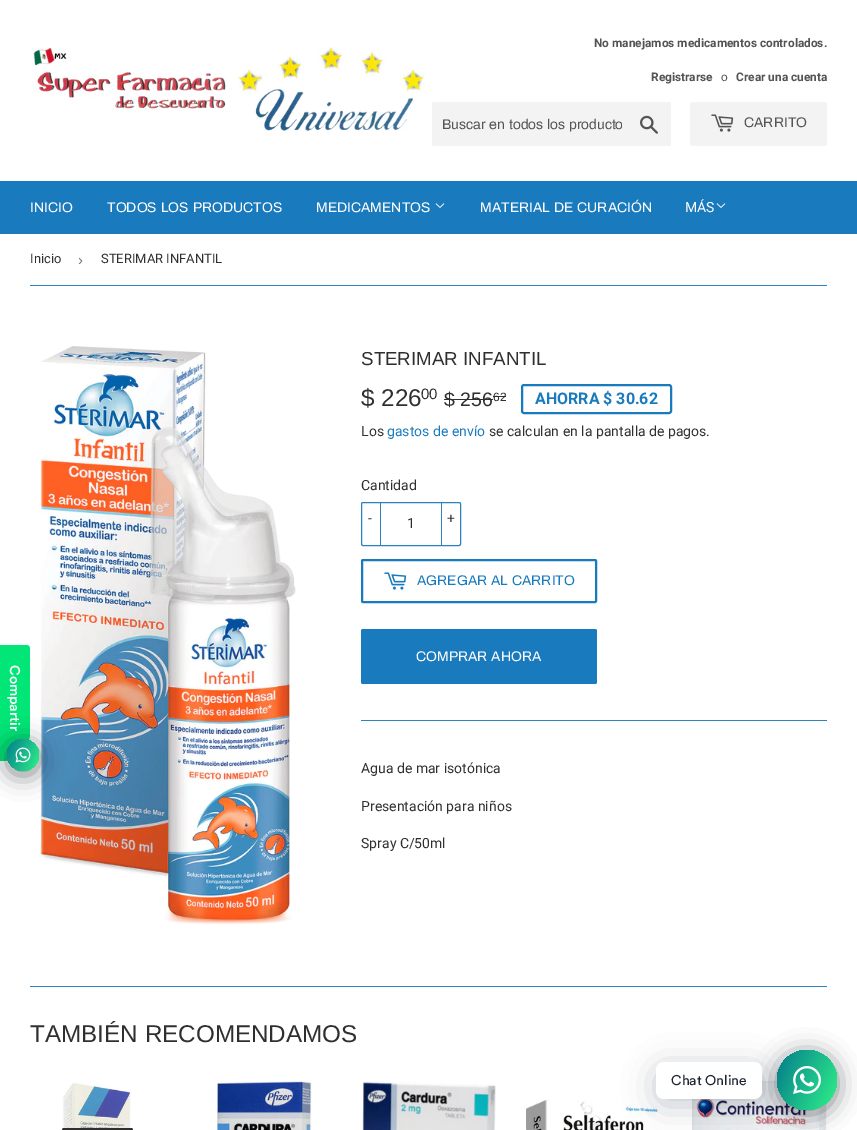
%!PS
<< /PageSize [857 1130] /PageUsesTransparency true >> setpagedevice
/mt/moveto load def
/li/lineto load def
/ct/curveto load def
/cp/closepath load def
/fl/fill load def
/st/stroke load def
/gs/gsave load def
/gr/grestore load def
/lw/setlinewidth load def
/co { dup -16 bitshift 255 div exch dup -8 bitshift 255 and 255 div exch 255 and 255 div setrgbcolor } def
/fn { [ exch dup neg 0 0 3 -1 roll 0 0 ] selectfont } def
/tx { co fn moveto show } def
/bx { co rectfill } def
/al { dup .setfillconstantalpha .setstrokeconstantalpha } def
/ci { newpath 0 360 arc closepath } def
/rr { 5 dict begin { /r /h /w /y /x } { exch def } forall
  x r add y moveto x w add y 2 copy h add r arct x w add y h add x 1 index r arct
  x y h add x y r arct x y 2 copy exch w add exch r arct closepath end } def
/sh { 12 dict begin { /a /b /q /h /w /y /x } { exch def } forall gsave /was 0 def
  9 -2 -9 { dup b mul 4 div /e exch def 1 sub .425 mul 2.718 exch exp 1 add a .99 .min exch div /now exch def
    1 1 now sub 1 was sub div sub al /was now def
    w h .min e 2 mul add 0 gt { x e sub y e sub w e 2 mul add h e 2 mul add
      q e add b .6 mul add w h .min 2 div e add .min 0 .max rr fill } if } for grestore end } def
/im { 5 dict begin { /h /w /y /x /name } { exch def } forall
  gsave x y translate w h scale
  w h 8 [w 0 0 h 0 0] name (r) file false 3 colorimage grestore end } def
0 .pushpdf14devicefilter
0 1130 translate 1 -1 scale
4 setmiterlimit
0 0 857 1130 16#FFFFFF bx
(media/1.raw) 33 47 392 84 im
16#F3F3F3 co
432 102 239 44 2 rr fl
(media/2.raw) 640 115 18 19 im
690 102 137 44 2 rr fl
(media/3.raw) 711 114 23 18 im
0 181 857 53 16#197BBD bx
(media/4.raw) 435 203 10 5 im
(media/4.raw) 716 203 10 5 im
30 285 797 1 16#2C83BE bx
(media/5.raw) 39 346 257 579 im
444 399 49 1 16#2F2F2F bx
493 396 13 1 16#2F2F2F bx
16#197BBD co
2 lw
522 385 149 28 2 rr st
16#2C83BE co
1 lw
361.5 502.5 99 43 1.5 rr st
380 502 1 44 16#2C83BE bx
441 502 1 44 16#2C83BE bx
16#197BBD co
2 lw
362 560 234 42 1 rr st
(media/6.raw) 384 572 23 18 im
361 629 236 55 2 rr fl
361 720 466 1 16#2C83BE bx
30 986 797 1 16#2C83BE bx
(media/7.raw) 62 1082 69 48 im
16#2F2F2F co
62 1128 71 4 2 rr fl
(media/8.raw) 216 1081 96 49 im
(media/9.raw) 362 1081 134 49 im
(media/10.raw) 526 1099 132 31 im
(media/11.raw) 692 1081 135 49 im
16#01E677 co
0 761 mt 0 645 li 26 645 li 28 645 30 646 30 649 ct 30 733 li 30 748 17 761 2 761 ct cp fl
16#020610 co
7 743 32 32 16 12 .5 sh
gs 23 755 16 ci clip newpath
<< /ShadingType 2 /ColorSpace /DeviceRGB /Coords [3.7 746 42 764] /Extend [true true] /Function << /FunctionType 2 /Domain [0 1] /C0 [.016 .486 .553] /C1 [.184 .949 .537] /N 1 >> >> shfill gr
(media/12.raw) 15 747 16 16 im
777 1054 60 60 30 12 .5 sh
gs 807 1080 30 ci clip newpath
<< /ShadingType 2 /ColorSpace /DeviceRGB /Coords [771 1063 843 1097] /Extend [true true] /Function << /FunctionType 2 /Domain [0 1] /C0 [.016 .486 .553] /C1 [.184 .949 .537] /N 1 >> >> shfill gr
16#00122E co
656 1068 106 37 8 16 .24 sh
16#FFFFFF co
656 1062 106 37 8 rr fl
(media/13.raw) 793 1066 28 28 im
(No manejamos medicamentos controlados.) 594 47 /Roboto-Bold 11.9 16#545454 tx
(Registrarse) 651 81 /Roboto-Bold 11.9 16#545454 tx
(o) 721 81 /Roboto-Regular 11.9 16#545454 tx
(Crear una cuenta) 736 81 /Roboto-Bold 11.9 16#545454 tx
gs
442 117 180 15 rectclip
(Buscar en todos los producto) 442 129 /Archivo-Regular 14 16#545454 tx
gr
(CARRITO) 744 127 /Archivo-Regular 14 16#545454 tx
(INICIO) 30 212 /Archivo-Regular 14 16#FFFFFF tx
(TODOS LOS PRODUCTOS) 107 212 /Archivo-Regular 14 16#FFFFFF tx
(MEDICAMENTOS) 316 212 /Archivo-Regular 14 16#FFFFFF tx
(MATERIAL DE CURACIÓN) 480 212 /Archivo-Regular 14 16#FFFFFF tx
(MÁS) 685 212 /Roboto-Regular 14 16#FFFFFF tx
(Inicio) 30 263 /Roboto-Regular 13 16#2F2F2F tx
(›) 78 265 /LiberationSans-Regular 15 16#767676 tx
(STERIMAR INFANTIL) 101 263 /Roboto-Regular 13 16#2F2F2F tx
(STERIMAR INFANTIL) 361 365 /Arimo-Regular 18.75 16#2F2F2F tx
($ 226) 361 406 /Arimo-Regular 24.25 16#2F2F2F tx
(00) 421 399 /Arimo-Regular 15 16#2F2F2F tx
($ 256) 444 406 /Arimo-Regular 19.5 16#2F2F2F tx
(62) 493 401 /Arimo-Regular 12 16#2F2F2F tx
(AHORRA $ 30.62) 535 404 /Roboto-Bold 16 16#197BBD tx
(Los) 361 436 /Roboto-Regular 14 16#2F2F2F tx
(gastos de envío) 387 436 /Roboto-Regular 14 16#197BBD tx
(se calculan en la pantalla de pagos.) 489 436 /Roboto-Regular 14 16#2F2F2F tx
(Cantidad) 361 490 /Roboto-Regular 14 16#2F2F2F tx
(-) 368 523 /Roboto-Regular 14 16#2F2F2F tx
(1) 407 528 /Roboto-Regular 14 16#2F2F2F tx
(+) 447 523 /Roboto-Regular 14 16#2F2F2F tx
(AGREGAR AL CARRITO) 417 585 /Archivo-Regular 14 16#197BBD tx
(COMPRAR AHORA) 416 661 /Archivo-Regular 14 16#FFFFFF tx
(Agua de mar isotónica) 361 773 /Roboto-Regular 14 16#2F2F2F tx
(Presentación para niños) 361 811 /Roboto-Regular 14 16#2F2F2F tx
(Spray C/50ml) 361 848 /Roboto-Regular 14 16#2F2F2F tx
(TAMBIÉN RECOMENDAMOS) 30 1042 /Arimo-Regular 24.25 16#2F2F2F tx
/Circular-Medium 14 fn
16#FFFFFF co
gs 10 665 translate 90 rotate 0 0 mt (Compartir) show gr
(Chat Online) 671 1085 /Circular-Regular 14 16#1E2433 tx
.poppdf14devicefilter showpage
